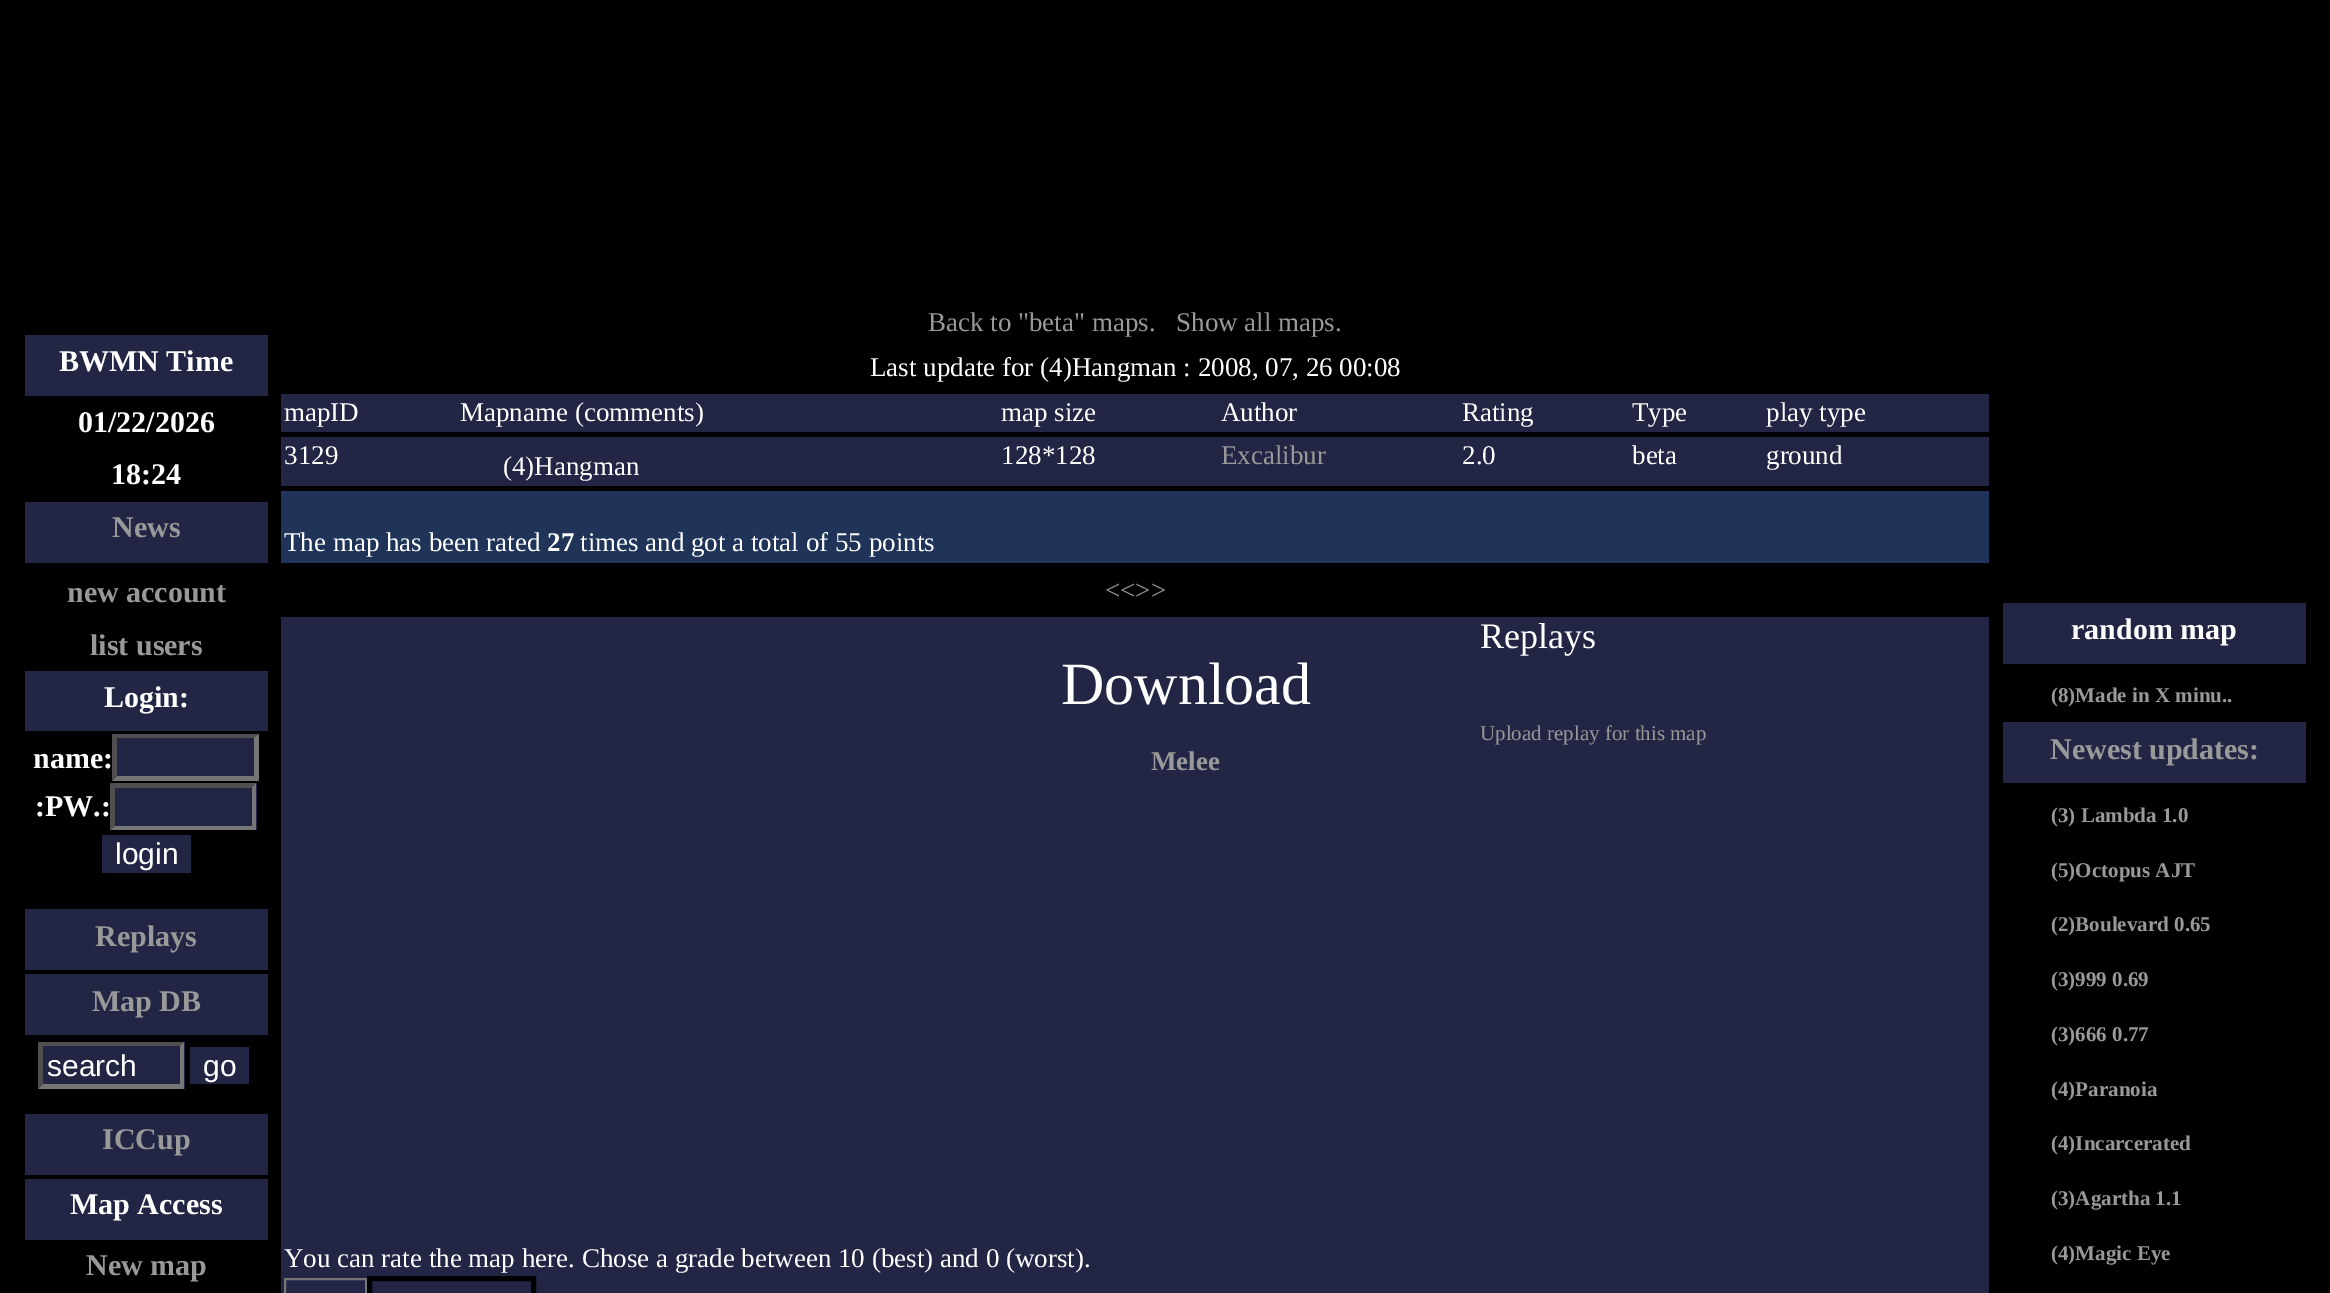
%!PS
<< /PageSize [2330 1293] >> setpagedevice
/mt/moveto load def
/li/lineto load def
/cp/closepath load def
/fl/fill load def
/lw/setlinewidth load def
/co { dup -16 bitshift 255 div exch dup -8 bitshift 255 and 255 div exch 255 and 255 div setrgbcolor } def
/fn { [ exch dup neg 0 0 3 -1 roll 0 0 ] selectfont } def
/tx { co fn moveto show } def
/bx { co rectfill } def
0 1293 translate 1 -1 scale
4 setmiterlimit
0 0 2330 1293 16#000000 bx
25 335 243 61 16#222644 bx
25 502 243 61 16#222644 bx
25 671 243 60 16#222644 bx
113 734 146 47 16#222644 bx
16#4F4F4F co
112 734 mt 259 734 li 254 738 li 117 738 li cp fl
16#767676 co
259 734 mt 259 781 li 254 776 li 254 738 li cp fl
259 781 mt 112 781 li 117 776 li 254 776 li cp fl
16#4F4F4F co
112 781 mt 112 734 li 117 738 li 117 776 li cp fl
110 783 147 47 16#222644 bx
16#4F4F4F co
110 783 mt 256 783 li 252 788 li 115 788 li cp fl
16#767676 co
256 783 mt 256 830 li 252 826 li 252 788 li cp fl
256 830 mt 110 830 li 115 826 li 252 826 li cp fl
16#4F4F4F co
110 830 mt 110 783 li 115 788 li 115 826 li cp fl
102 835 89 38 16#222644 bx
25 909 243 61 16#222644 bx
25 974 243 61 16#222644 bx
38 1042 147 47 16#222644 bx
16#4F4F4F co
38 1042 mt 184 1042 li 180 1046 li 43 1046 li cp fl
16#767676 co
184 1042 mt 184 1089 li 180 1084 li 180 1046 li cp fl
184 1089 mt 38 1089 li 43 1084 li 180 1084 li cp fl
16#4F4F4F co
38 1089 mt 38 1042 li 43 1046 li 43 1084 li cp fl
190 1047 59 37 16#222644 bx
25 1114 243 61 16#222644 bx
25 1179 243 61 16#222644 bx
281 394 1708 38 16#222644 bx
281 437 1708 49 16#222644 bx
281 491 1708 72 16#1F3458 bx
281 617 1708 676 16#222644 bx
16#767676 co
2 lw
285 1279 81 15 rectstroke
16#000000 co
5 lw
369.5 1278.5 164 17 rectstroke
2003 603 303 61 16#222644 bx
2003 722 303 61 16#222644 bx
(BWMN Time) 59 371 /LiberationSerif-Bold 30 16#FFFFFF tx
(01/22/2026) 78 432 /LiberationSerif-Bold 30 16#FFFFFF tx
(18:24) 111 484 /LiberationSerif-Bold 30 16#FFFFFF tx
(News) 112 537 /LiberationSerif-Bold 30 16#999999 tx
(new account) 67 602 /LiberationSerif-Bold 30 16#999999 tx
(list users) 90 655 /LiberationSerif-Bold 30 16#999999 tx
(Login:) 104 707 /LiberationSerif-Bold 30 16#FFFFFF tx
(name:) 33 768 /LiberationSerif-Bold 30 16#FFFFFF tx
(:PW.:) 35 816 /LiberationSerif-Bold 30 16#FFFFFF tx
(login) 115 864 /LiberationSans-Regular 30 16#FFFFFF tx
(Replays) 95 946 /LiberationSerif-Bold 30 16#999999 tx
(Map DB) 92 1011 /LiberationSerif-Bold 30 16#999999 tx
(search) 47 1076 /LiberationSans-Regular 30 16#FFFFFF tx
(go) 203 1076 /LiberationSans-Regular 30 16#FFFFFF tx
(ICCup) 102 1149 /LiberationSerif-Bold 30 16#999999 tx
(Map Access) 70 1214 /LiberationSerif-Bold 30 16#FFFFFF tx
(New map) 86 1275 /LiberationSerif-Bold 30 16#999999 tx
(Back to "beta" maps.) 928 331 /LiberationSerif-Regular 27 16#999999 tx
(Show all maps.) 1176 331 /LiberationSerif-Regular 27 16#999999 tx
(Last update for \(4\)Hangman : 2008, 07, 26 00:08) 870 376 /LiberationSerif-Regular 27 16#FFFFFF tx
(mapID) 284 421 /LiberationSerif-Regular 27 16#FFFFFF tx
(Mapname \(comments\)) 460 421 /LiberationSerif-Regular 27 16#FFFFFF tx
(map size) 1001 421 /LiberationSerif-Regular 27 16#FFFFFF tx
(Author) 1221 421 /LiberationSerif-Regular 27 16#FFFFFF tx
(Rating) 1462 421 /LiberationSerif-Regular 27 16#FFFFFF tx
(Type) 1632 421 /LiberationSerif-Regular 27 16#FFFFFF tx
(play type) 1766 421 /LiberationSerif-Regular 27 16#FFFFFF tx
(3129) 284 464 /LiberationSerif-Regular 27 16#FFFFFF tx
(\(4\)Hangman) 503 475 /LiberationSerif-Regular 27 16#FFFFFF tx
(128*128) 1001 464 /LiberationSerif-Regular 27 16#FFFFFF tx
(Excalibur) 1221 464 /LiberationSerif-Regular 27 16#999999 tx
(2.0) 1462 464 /LiberationSerif-Regular 27 16#FFFFFF tx
(beta) 1632 464 /LiberationSerif-Regular 27 16#FFFFFF tx
(ground) 1766 464 /LiberationSerif-Regular 27 16#FFFFFF tx
(The map has been rated) 284 551 /LiberationSerif-Regular 27 16#FFFFFF tx
(27) 547 551 /LiberationSerif-Bold 27 16#FFFFFF tx
(times and got a total of 55 points) 580 551 /LiberationSerif-Regular 27 16#FFFFFF tx
(<<>>) 1105 599 /LiberationSerif-Regular 27 16#999999 tx
(Download) 1061 704 /LiberationSerif-Regular 60 16#FFFFFF tx
(Melee) 1151 770 /LiberationSerif-Bold 27 16#999999 tx
(You can rate the map here. Chose a grade between 10 \(best\) and 0 \(worst\).) 284 1267 /LiberationSerif-Regular 27 16#FFFFFF tx
(Replays) 1480 648 /LiberationSerif-Regular 36 16#FFFFFF tx
(Upload replay for this map) 1480 740 /LiberationSerif-Regular 21 16#999999 tx
(random map) 2071 639 /LiberationSerif-Bold 30 16#FFFFFF tx
(\(8\)Made in X minu..) 2051 702 /LiberationSerif-Bold 21 16#999999 tx
(Newest updates:) 2050 759 /LiberationSerif-Bold 30 16#999999 tx
(\(3\) Lambda 1.0) 2051 822 /LiberationSerif-Bold 21 16#999999 tx
(\(5\)Octopus AJT) 2051 877 /LiberationSerif-Bold 21 16#999999 tx
(\(2\)Boulevard 0.65) 2051 931 /LiberationSerif-Bold 21 16#999999 tx
(\(3\)999 0.69) 2051 986 /LiberationSerif-Bold 21 16#999999 tx
(\(3\)666 0.77) 2051 1041 /LiberationSerif-Bold 21 16#999999 tx
(\(4\)Paranoia) 2051 1096 /LiberationSerif-Bold 21 16#999999 tx
(\(4\)Incarcerated) 2051 1150 /LiberationSerif-Bold 21 16#999999 tx
(\(3\)Agartha 1.1) 2051 1205 /LiberationSerif-Bold 21 16#999999 tx
(\(4\)Magic Eye) 2051 1260 /LiberationSerif-Bold 21 16#999999 tx
showpage
